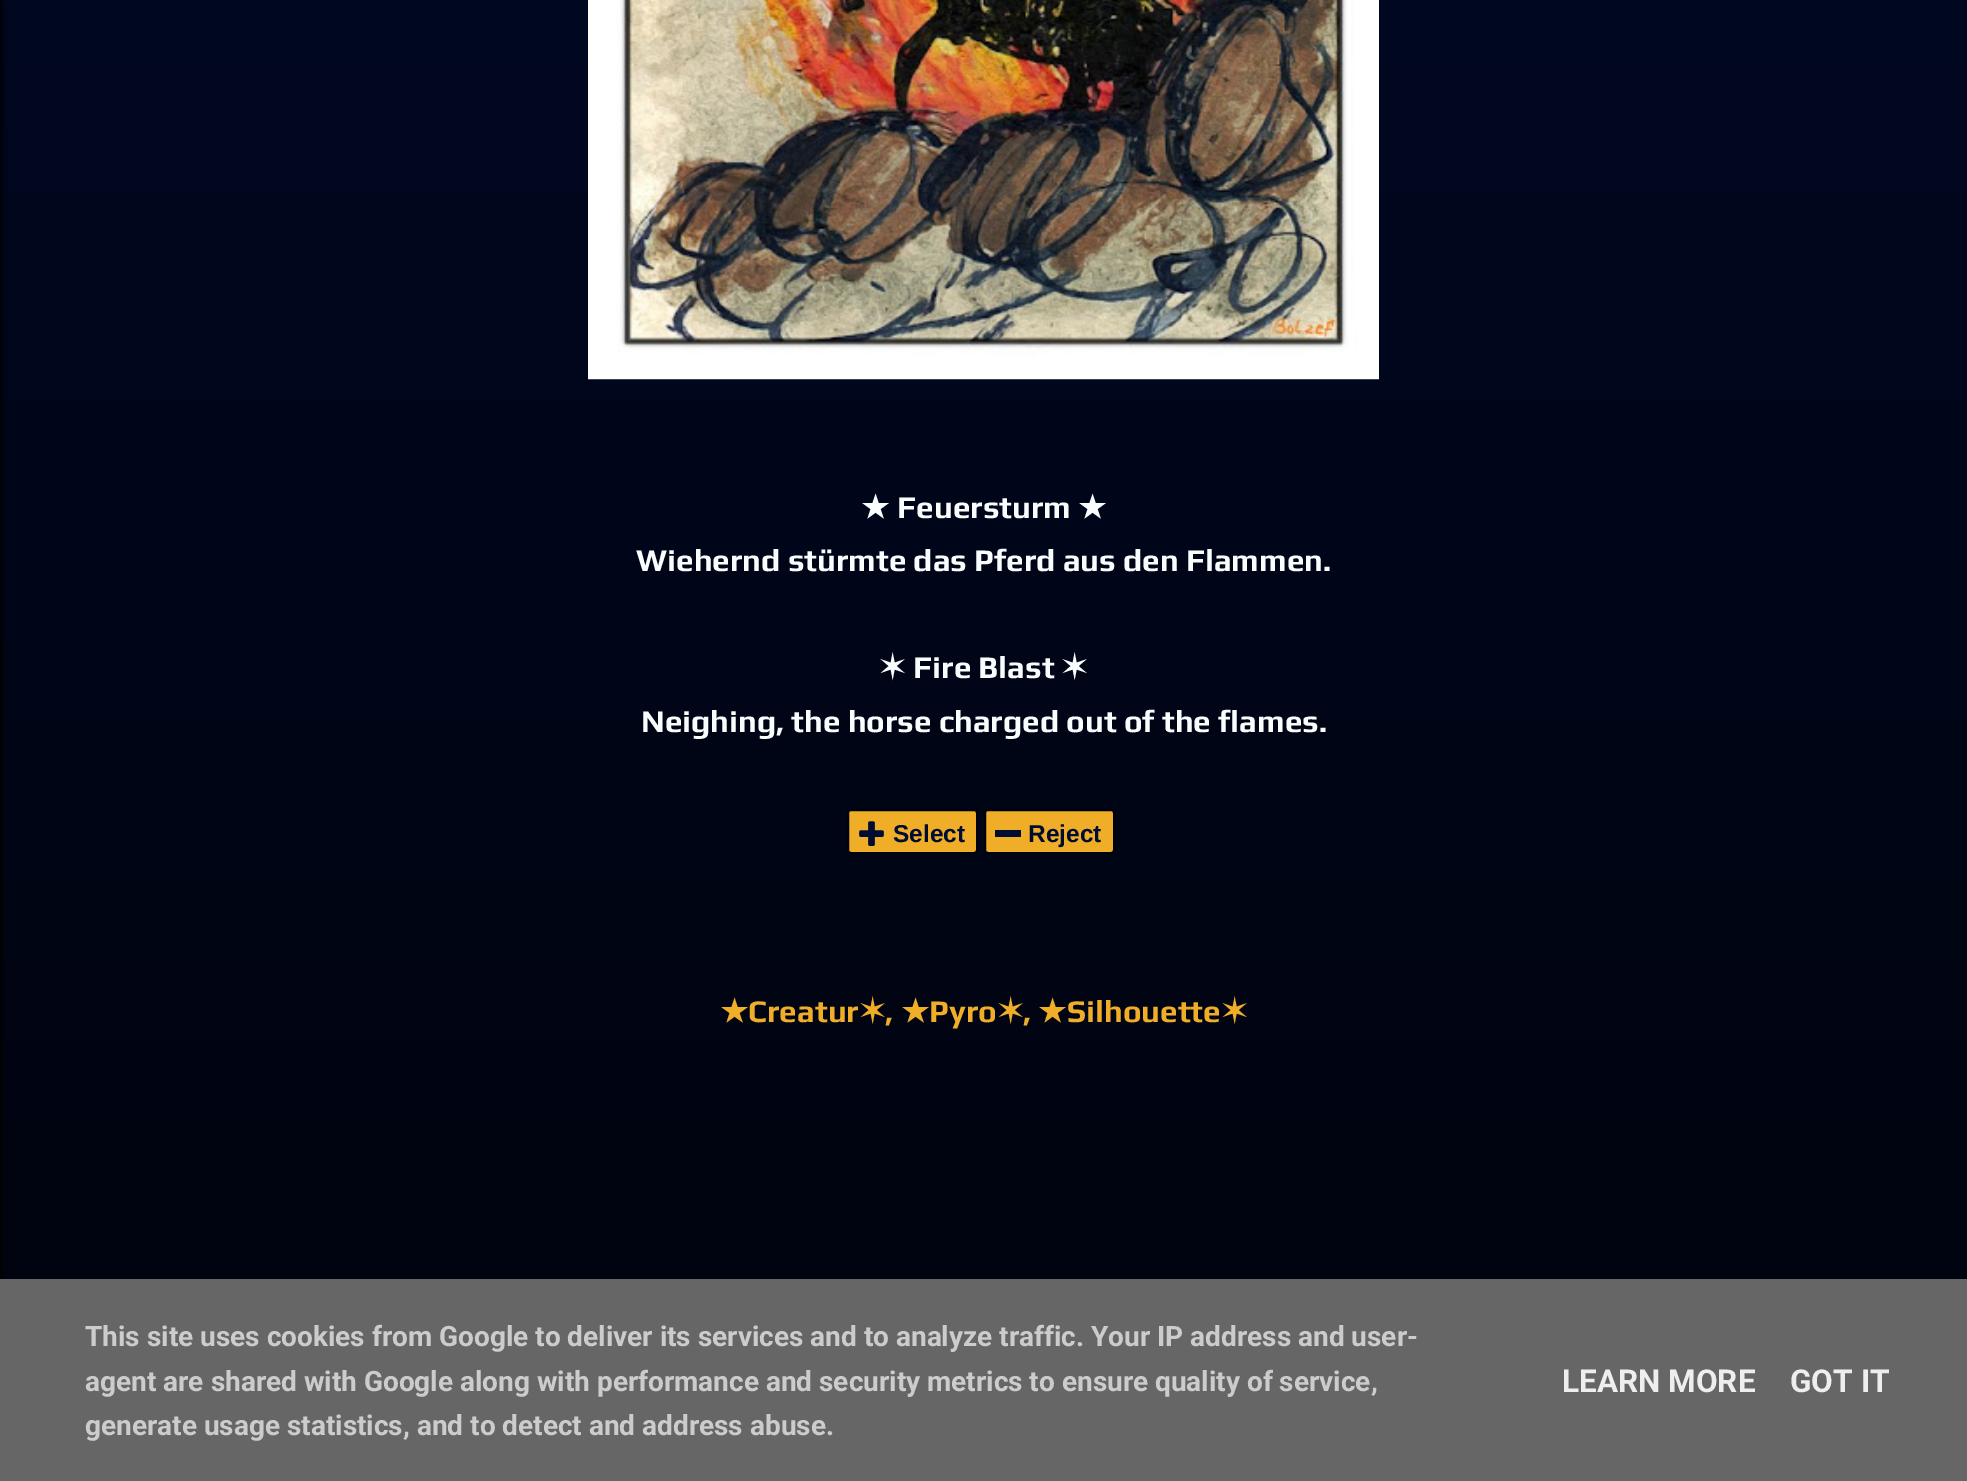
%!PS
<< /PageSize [1967 1481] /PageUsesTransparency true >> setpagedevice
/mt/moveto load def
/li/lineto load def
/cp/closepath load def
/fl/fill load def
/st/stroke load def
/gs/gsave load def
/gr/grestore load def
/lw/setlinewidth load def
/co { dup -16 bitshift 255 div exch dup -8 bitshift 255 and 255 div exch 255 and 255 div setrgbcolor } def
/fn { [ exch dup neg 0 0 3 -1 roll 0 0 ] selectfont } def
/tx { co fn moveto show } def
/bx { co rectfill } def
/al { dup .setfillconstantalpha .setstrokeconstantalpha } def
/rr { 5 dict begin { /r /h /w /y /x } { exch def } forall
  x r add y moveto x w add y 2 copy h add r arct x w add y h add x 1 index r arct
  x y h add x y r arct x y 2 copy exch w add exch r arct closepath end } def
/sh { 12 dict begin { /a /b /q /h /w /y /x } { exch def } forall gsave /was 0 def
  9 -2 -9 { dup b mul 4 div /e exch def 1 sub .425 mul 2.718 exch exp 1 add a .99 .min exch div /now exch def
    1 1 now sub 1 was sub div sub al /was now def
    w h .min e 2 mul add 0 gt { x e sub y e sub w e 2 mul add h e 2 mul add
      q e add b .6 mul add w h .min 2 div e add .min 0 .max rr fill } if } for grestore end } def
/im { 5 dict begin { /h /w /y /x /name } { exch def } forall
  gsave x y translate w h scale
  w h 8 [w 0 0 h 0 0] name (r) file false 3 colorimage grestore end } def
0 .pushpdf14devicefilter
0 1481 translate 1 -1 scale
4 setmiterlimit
0 0 1967 1481 16#FFFFFF bx
gs 0 0 mt 1967 0 li 1967 1279 li 0 1279 li cp clip newpath
<< /ShadingType 2 /ColorSpace /DeviceRGB /Coords [983 -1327 984 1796] /Extend [true true] /Function << /FunctionType 2 /Domain [0 1] /C0 [0 .051 .196] /C1 [0 .008 .035] /N 1 >> >> shfill gr
16#000000 co
-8 0 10 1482 0 2.5 1 sh
(media/1.raw) 588 0 791 380 im
16#EFAD28 co
848 810 129 43 3 rr gs fl gr
16#000209 co
2 lw
st
(media/2.raw) 859 821 25 25 im
16#EFAD28 co
985 810 129 43 3 rr gs fl gr
16#000209 co
st
995 830 26 7 16#000D32 bx
0 1279 1967 202 16#666666 bx
(★) 861 518 /DejaVuSans-Bold 31.5 16#FAFDFE tx
(Feuersturm) 897 518 /Play-Bold 31.5 16#FAFDFE tx
(★) 1078 518 /DejaVuSans-Bold 31.5 16#FAFDFE tx
(Wiehernd stürmte das Pferd aus den Flammen.) 636 571 /Play-Bold 31.5 16#FAFDFE tx
(✶) 879 678 /DejaVuSans-Bold 31.5 16#FAFDFE tx
(Fire Blast) 913 678 /Play-Bold 31.5 16#FAFDFE tx
(✶) 1061 678 /DejaVuSans-Bold 31.5 16#FAFDFE tx
(Neighing, the horse charged out of the flames.) 641 732 /Play-Bold 31.5 16#FAFDFE tx
(Select) 893 842 /LiberationSans-Bold 24.5 16#000D32 tx
(Reject) 1028 842 /LiberationSans-Bold 24.5 16#000D32 tx
(★) 720 1022 /DejaVuSans-Bold 31.5 16#EFAD28 tx
(Creatur) 748 1022 /Play-Bold 31.5 16#EFAD28 tx
(✶) 859 1022 /DejaVuSans-Bold 31.5 16#EFAD28 tx
(,) 885 1022 /Play-Bold 31.5 16#EFAD28 tx
(★) 901 1022 /DejaVuSans-Bold 31.5 16#EFAD28 tx
(Pyro) 929 1022 /Play-Bold 31.5 16#EFAD28 tx
(✶) 997 1022 /DejaVuSans-Bold 31.5 16#EFAD28 tx
(,) 1023 1022 /Play-Bold 31.5 16#EFAD28 tx
(★) 1038 1022 /DejaVuSans-Bold 31.5 16#EFAD28 tx
(Silhouette) 1067 1022 /Play-Bold 31.5 16#EFAD28 tx
(✶) 1221 1022 /DejaVuSans-Bold 31.5 16#EFAD28 tx
(This site uses cookies from Google to deliver its services and to analyze traffic. Your IP address and user-) 85 1346 /Roboto-Bold 28 16#CCCCCC tx
(agent are shared with Google along with performance and security metrics to ensure quality of service,) 85 1391 /Roboto-Bold 28 16#CCCCCC tx
(generate usage statistics, and to detect and address abuse.) 85 1435 /Roboto-Bold 28 16#CCCCCC tx
(LEARN MORE) 1562 1392 /Roboto-Bold 31.5 16#EEEEEE tx
(GOT IT) 1790 1392 /Roboto-Bold 31.5 16#EEEEEE tx
.poppdf14devicefilter showpage
